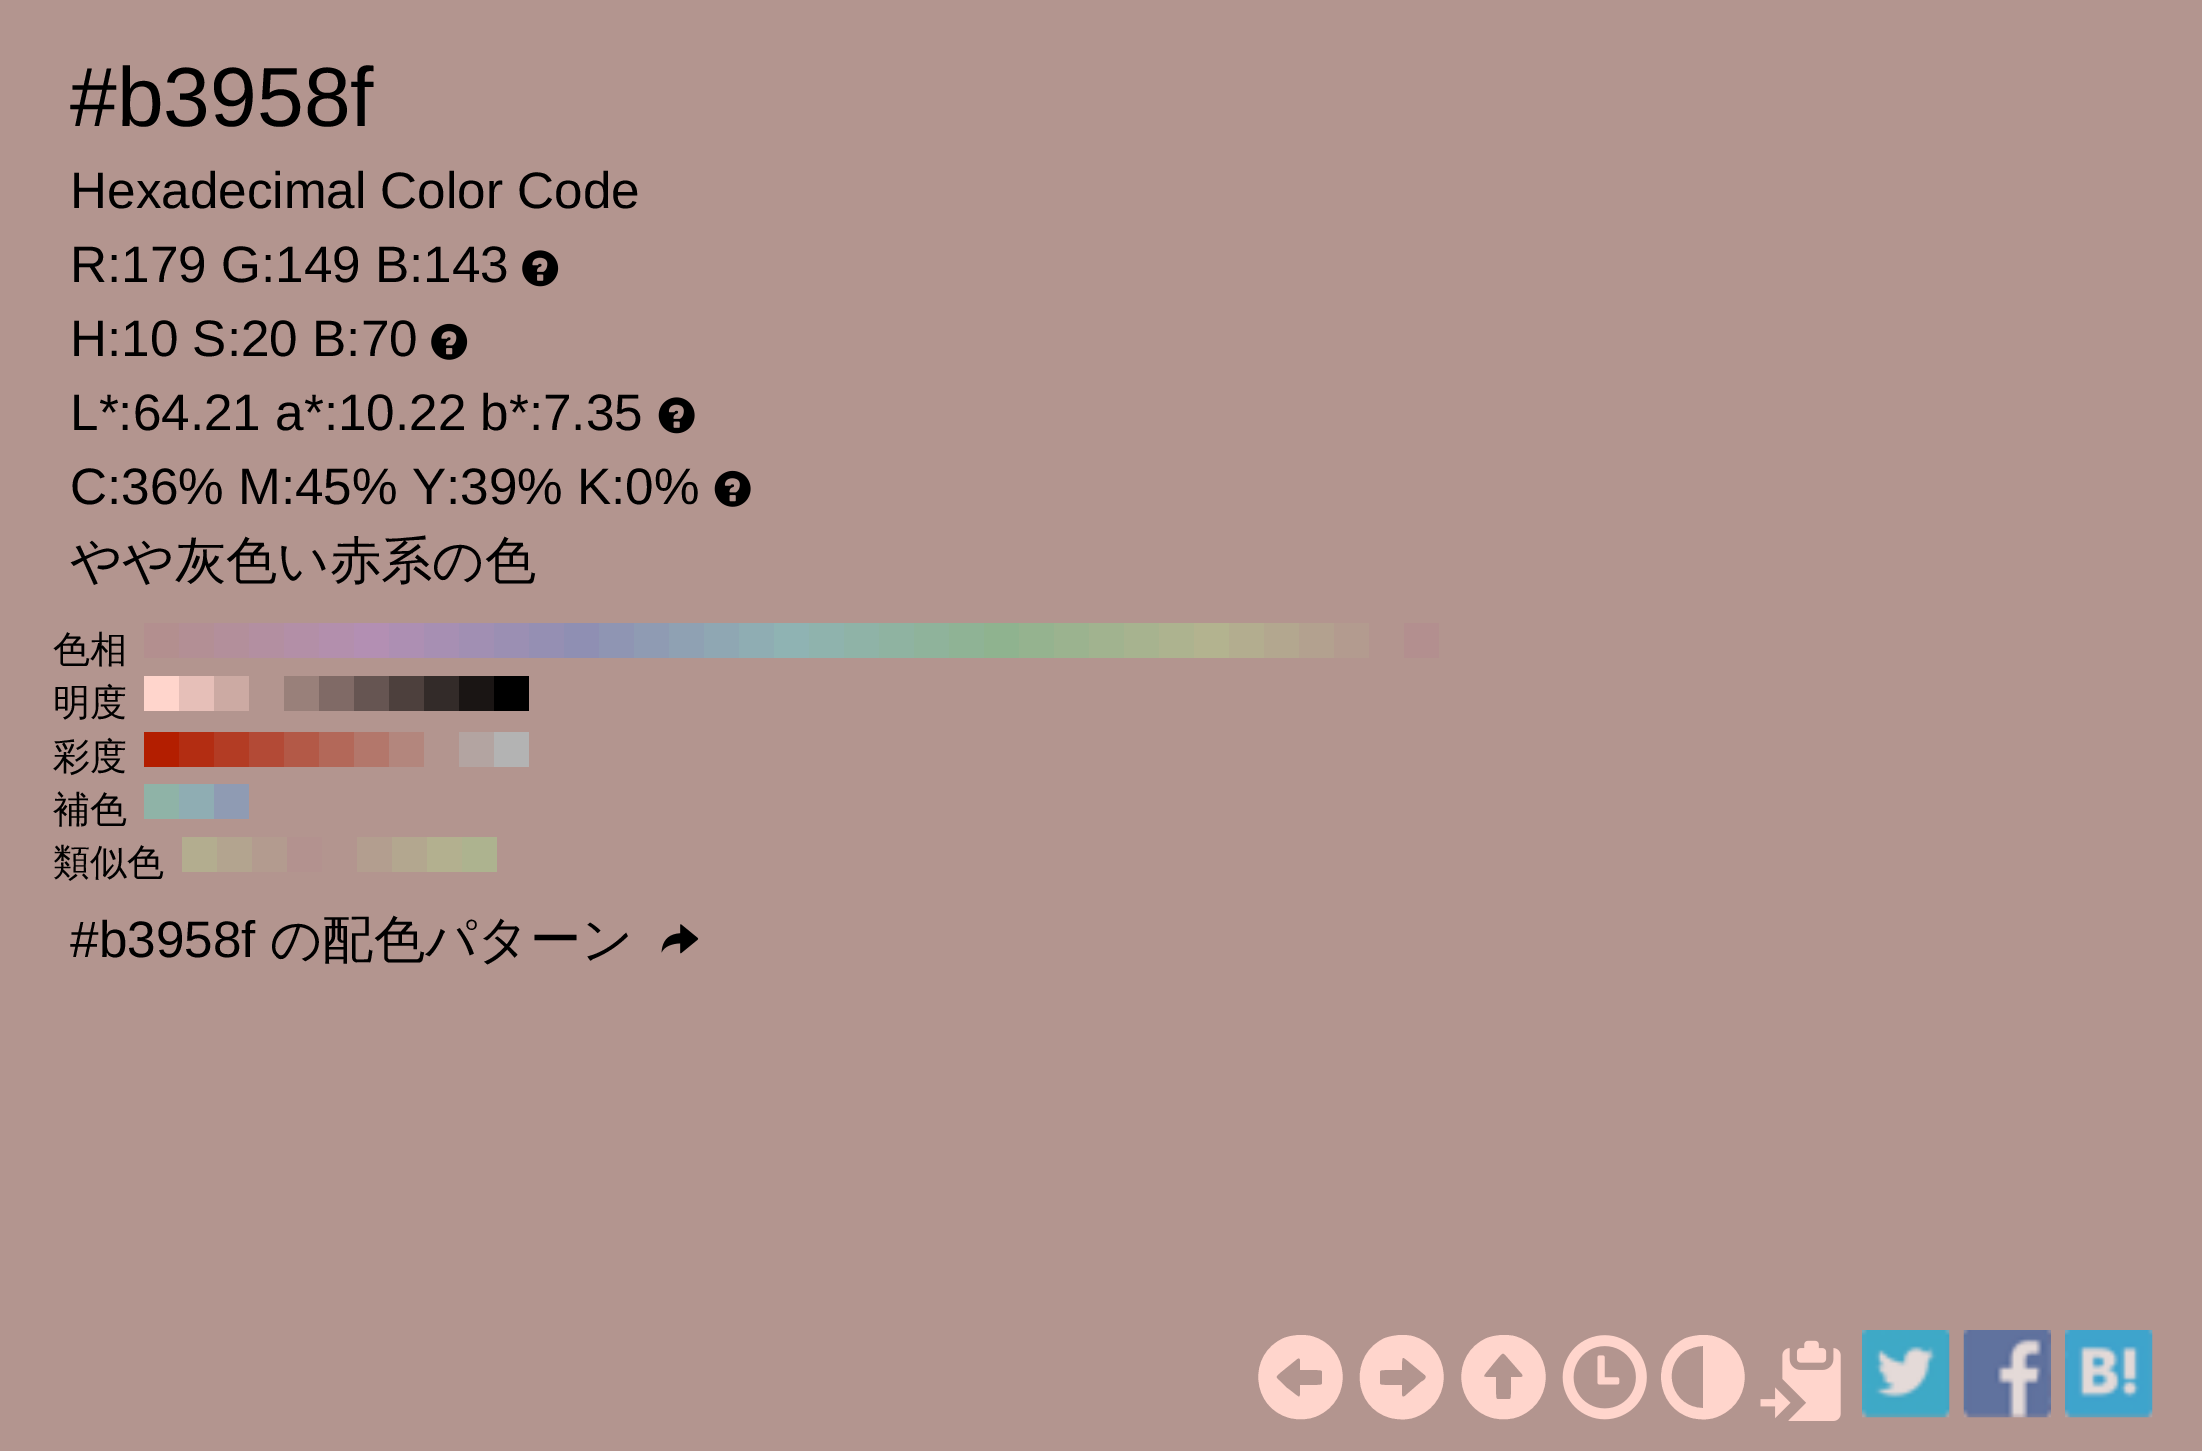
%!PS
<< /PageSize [2202 1451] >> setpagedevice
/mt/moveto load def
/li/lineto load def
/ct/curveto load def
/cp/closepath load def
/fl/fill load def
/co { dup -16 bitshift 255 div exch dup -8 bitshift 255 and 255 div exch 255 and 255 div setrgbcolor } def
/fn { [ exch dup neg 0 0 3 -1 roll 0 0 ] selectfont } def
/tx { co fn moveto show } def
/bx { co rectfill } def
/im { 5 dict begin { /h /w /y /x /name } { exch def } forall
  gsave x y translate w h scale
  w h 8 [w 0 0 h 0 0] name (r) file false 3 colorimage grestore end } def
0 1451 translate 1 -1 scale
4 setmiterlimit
0 0 2202 1451 16#B3958F bx
(media/1.raw) 522 250 37 37 im
(media/2.raw) 431 323 37 37 im
(media/3.raw) 658 397 37 37 im
(media/4.raw) 714 470 37 37 im
144 623 35 35 16#B38F8F bx
179 623 35 35 16#B38F95 bx
214 623 35 35 16#B38F9B bx
249 623 35 35 16#B38FA1 bx
284 623 35 35 16#B38FA7 bx
319 623 35 35 16#B38FAD bx
354 623 35 35 16#B38FB3 bx
389 623 35 35 16#AD8FB3 bx
424 623 35 35 16#A78FB3 bx
459 623 35 35 16#A18FB3 bx
494 623 35 35 16#9B8FB3 bx
529 623 35 35 16#958FB3 bx
564 623 35 35 16#8F8FB3 bx
599 623 35 35 16#8F95B3 bx
634 623 35 35 16#8F9BB3 bx
669 623 35 35 16#8FA1B3 bx
704 623 35 35 16#8FA7B3 bx
739 623 35 35 16#8FADB3 bx
774 623 35 35 16#8FB3B3 bx
809 623 35 35 16#8FB3AD bx
844 623 35 35 16#8FB3A7 bx
879 623 35 35 16#8FB3A1 bx
914 623 35 35 16#8FB39B bx
949 623 35 35 16#8FB395 bx
984 623 35 35 16#8FB38F bx
1019 623 35 35 16#95B38F bx
1054 623 35 35 16#9BB38F bx
1089 623 35 35 16#A1B38F bx
1124 623 35 35 16#A7B38F bx
1159 623 35 35 16#ADB38F bx
1194 623 35 35 16#B3B38F bx
1229 623 35 35 16#B3AD8F bx
1264 623 35 35 16#B3A78F bx
1299 623 35 35 16#B3A18F bx
1334 623 35 35 16#B39B8F bx
1404 623 35 35 16#B38F8F bx
144 676 35 35 16#FFD5CC bx
179 676 35 35 16#E6BFB8 bx
214 676 35 35 16#CCAAA3 bx
284 676 35 35 16#99807A bx
319 676 35 35 16#806A66 bx
354 676 35 35 16#665552 bx
389 676 35 35 16#4D403D bx
424 676 35 35 16#332B29 bx
459 676 35 35 16#1A1514 bx
494 676 35 35 16#000000 bx
144 732 35 35 16#B31E00 bx
179 732 35 35 16#B32D12 bx
214 732 35 35 16#B33C24 bx
249 732 35 35 16#B34A36 bx
284 732 35 35 16#B35947 bx
319 732 35 35 16#B36859 bx
354 732 35 35 16#B3776B bx
389 732 35 35 16#B3867D bx
459 732 35 35 16#B3A4A1 bx
494 732 35 35 16#B3B3B3 bx
144 784 35 35 16#8FB3A7 bx
179 784 35 35 16#8FADB3 bx
214 784 35 35 16#8F9BB3 bx
182 837 35 35 16#B3AD8F bx
217 837 35 35 16#B3A48F bx
252 837 35 35 16#B39B8F bx
287 837 35 35 16#B3928F bx
357 837 35 35 16#B39E8F bx
392 837 35 35 16#B3A78F bx
427 837 35 35 16#B3B08F bx
462 837 35 35 16#ADB38F bx
(media/5.raw) 661 924 38 30 im
16#FFD5CC co
1284 1338 mt 1292 1335 1302 1334 1311 1336 ct 1350 1346 1354 1400 1317 1416 ct 1308 1420 1299 1420 1290 1418 ct 1251 1408 1247 1354 1284 1338 ct cp 1297 1359 mt 1281 1372 li 1275 1377 1275 1377 1281 1382 ct 1287 1388 li 1302 1399 1300 1401 1300 1385 ct 1317 1385 li 1324 1385 1322 1384 1322 1377 ct 1322 1371 1324 1370 1317 1370 ct 1300 1370 li 1300 1363 li 1300 1362 1301 1356 1297 1359 ct cp fl
1385 1338 mt 1394 1335 1403 1334 1412 1336 ct 1451 1346 1455 1400 1418 1416 ct 1410 1420 1400 1420 1391 1418 ct 1352 1408 1349 1354 1385 1338 ct cp 1425 1375 mt 1408 1361 li 1404 1358 1402 1355 1402 1362 ct 1402 1370 li 1385 1370 li 1378 1370 1380 1371 1380 1377 ct 1380 1384 1378 1385 1385 1385 ct 1402 1385 li 1402 1391 li 1402 1393 1401 1399 1405 1396 ct 1421 1382 li 1423 1381 1428 1378 1425 1375 ct cp fl
1487 1338 mt 1495 1335 1505 1334 1514 1336 ct 1553 1346 1557 1400 1520 1416 ct 1511 1420 1502 1420 1493 1418 ct 1454 1408 1450 1354 1487 1338 ct cp 1522 1374 mt 1508 1358 li 1503 1352 1503 1352 1498 1358 ct 1493 1364 li 1481 1379 1480 1377 1496 1377 ct 1496 1394 li 1496 1401 1497 1399 1503 1399 ct 1510 1399 1511 1401 1511 1394 ct 1511 1377 li 1517 1377 li 1519 1377 1525 1378 1522 1374 ct cp fl
(media/6.raw) 1562 1335 85 85 im
1686 1338 mt 1695 1335 1704 1334 1713 1336 ct 1752 1346 1756 1400 1719 1416 ct 1711 1420 1701 1420 1692 1418 ct 1654 1408 1650 1354 1686 1338 ct cp 1703 1408 mt 1703 1346 li 1697 1346 1691 1348 1685 1351 ct 1660 1368 1672 1408 1703 1408 ct cp fl
(media/7.raw) 1760 1340 81 81 im
(media/8.raw) 1862 1330 88 88 im
(media/9.raw) 1963 1330 88 88 im
(media/10.raw) 2065 1330 88 88 im
(#b3958f) 70 126 /LiberationSans-Regular 84 16#000000 tx
(Hexadecimal Color Code) 70 208 /LiberationSans-Regular 51.25 16#000000 tx
(R:179 G:149 B:143) 70 282 /LiberationSans-Regular 51.25 16#000000 tx
(H:10 S:20 B:70) 70 356 /LiberationSans-Regular 51.25 16#000000 tx
(L*:64.21 a*:10.22 b*:7.35) 70 430 /LiberationSans-Regular 51.25 16#000000 tx
(C:36% M:45% Y:39% K:0%) 70 504 /LiberationSans-Regular 51.25 16#000000 tx
(やや灰色い赤系の色) 70 578 /WenQuanYiZenHei-Medium 51.25 16#000000 tx
(色相) 53 662 /WenQuanYiZenHei-Medium 37 16#000000 tx
(明度) 53 715 /WenQuanYiZenHei-Medium 37 16#000000 tx
(彩度) 53 769 /WenQuanYiZenHei-Medium 37 16#000000 tx
(補色) 53 822 /WenQuanYiZenHei-Medium 37 16#000000 tx
(類似色) 53 875 /WenQuanYiZenHei-Medium 37 16#000000 tx
(#b3958f) 70 957 /LiberationSans-Regular 51.25 16#000000 tx
(の配色パターン) 270 957 /WenQuanYiZenHei-Medium 51.25 16#000000 tx
showpage
